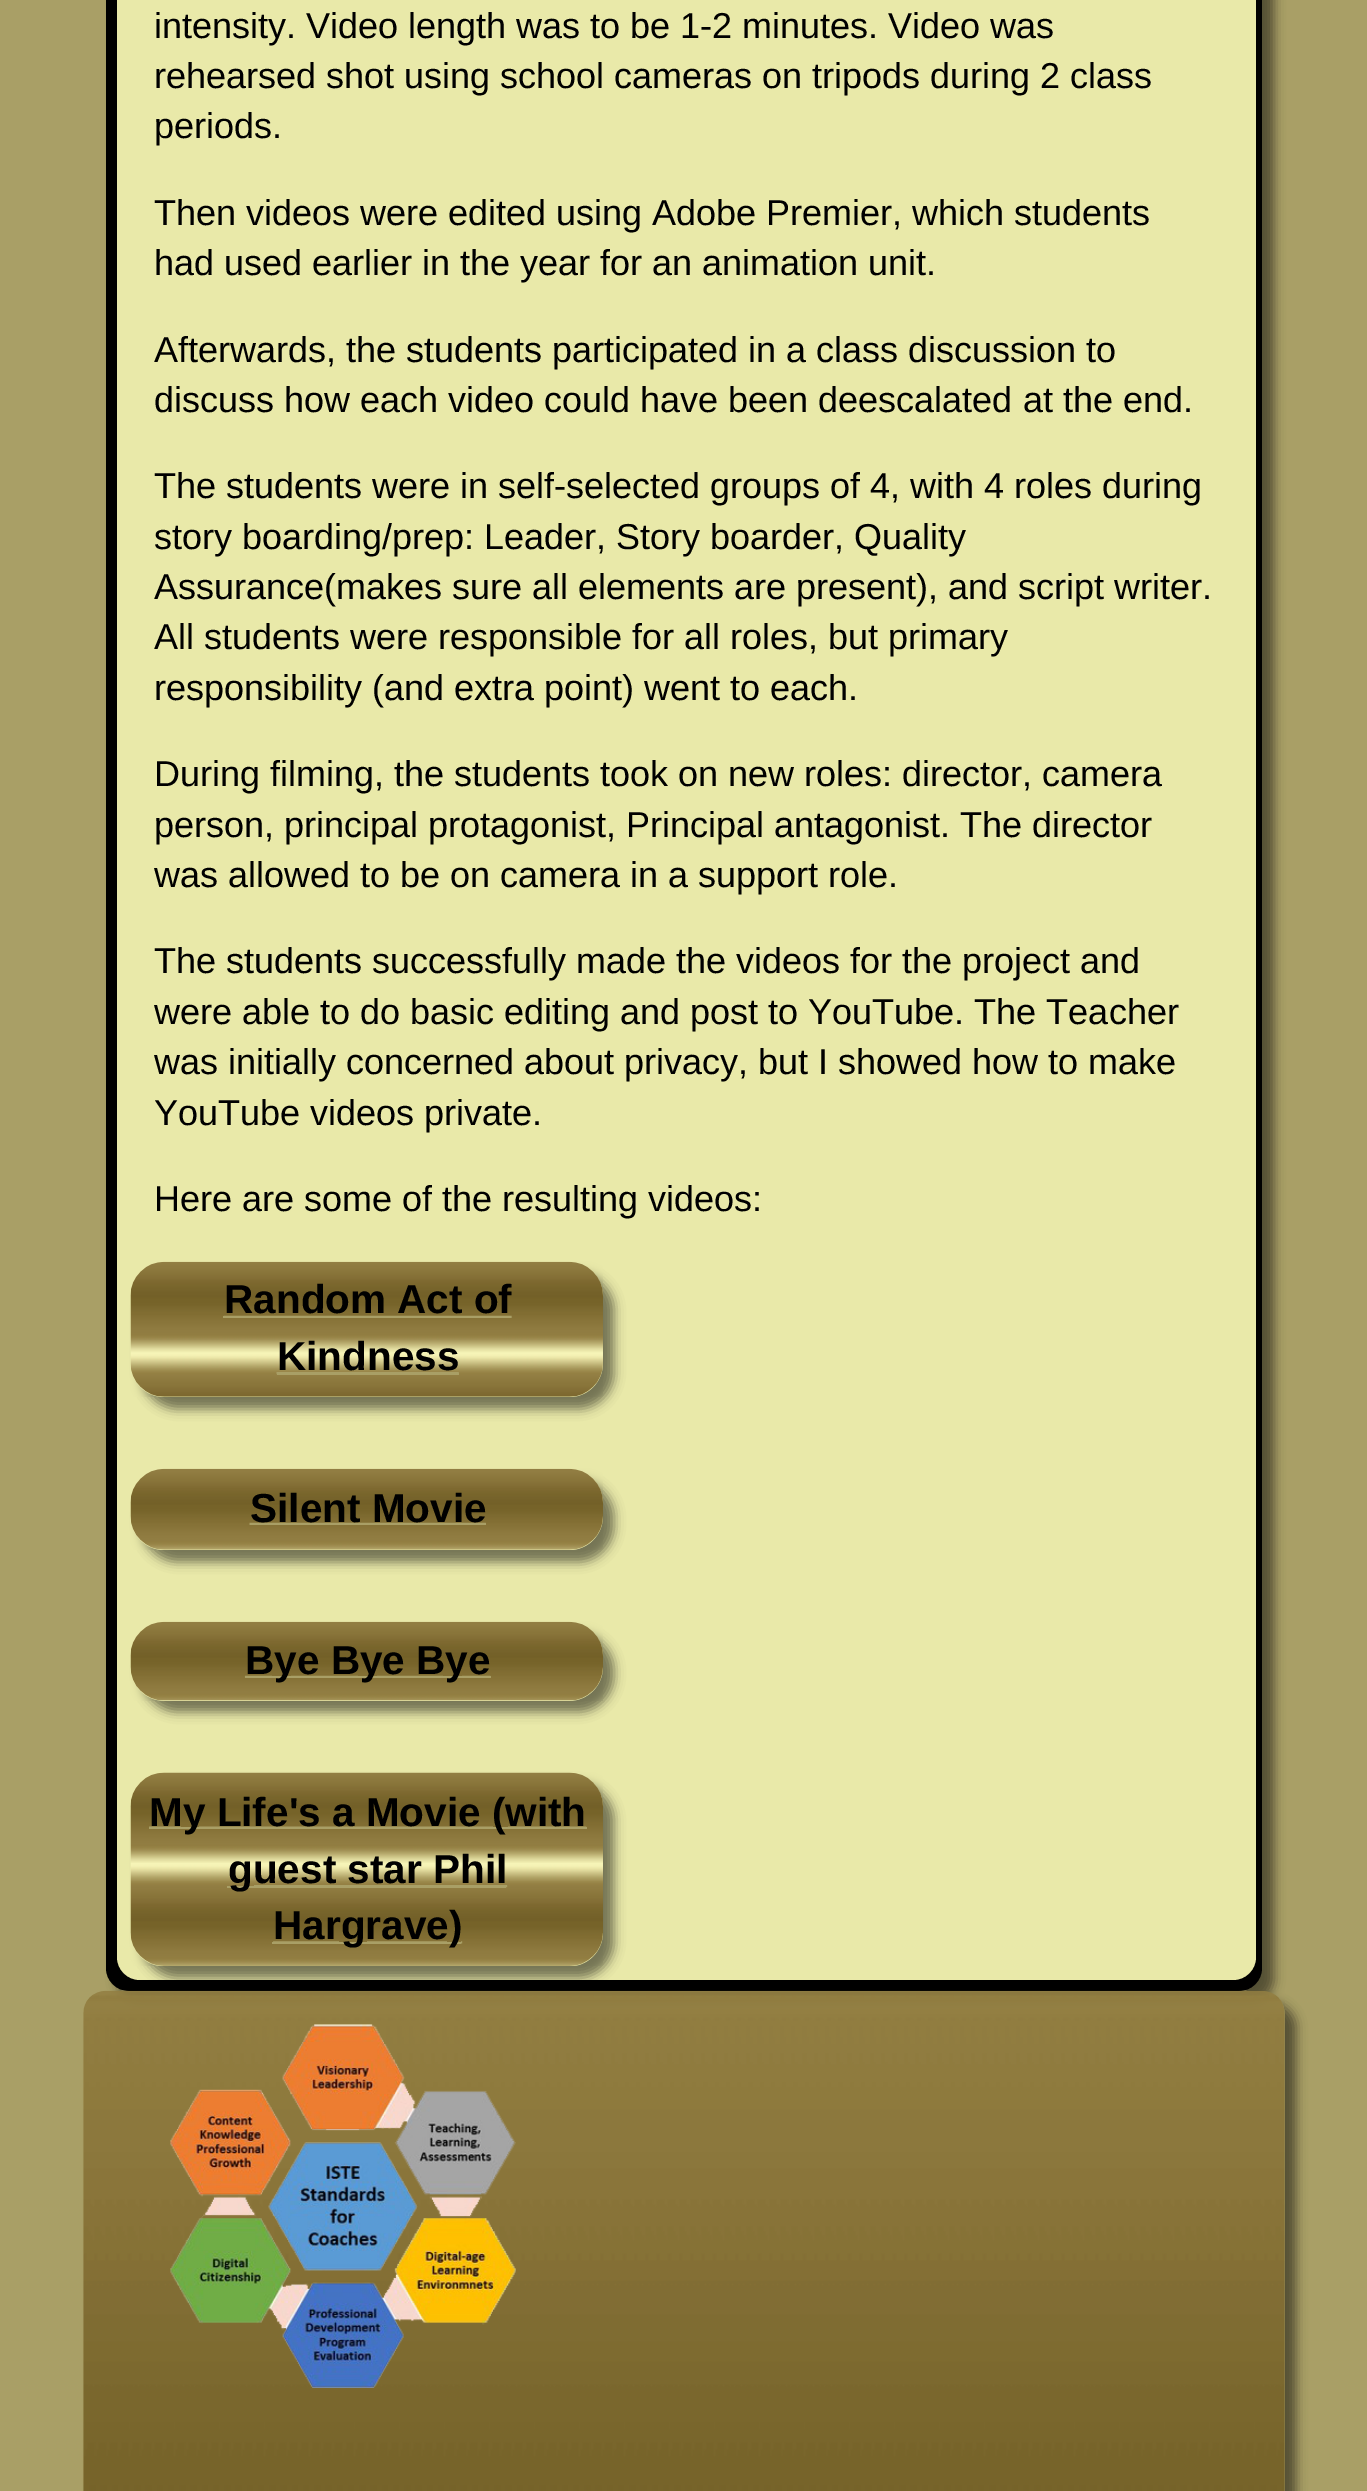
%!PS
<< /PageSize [1367 2491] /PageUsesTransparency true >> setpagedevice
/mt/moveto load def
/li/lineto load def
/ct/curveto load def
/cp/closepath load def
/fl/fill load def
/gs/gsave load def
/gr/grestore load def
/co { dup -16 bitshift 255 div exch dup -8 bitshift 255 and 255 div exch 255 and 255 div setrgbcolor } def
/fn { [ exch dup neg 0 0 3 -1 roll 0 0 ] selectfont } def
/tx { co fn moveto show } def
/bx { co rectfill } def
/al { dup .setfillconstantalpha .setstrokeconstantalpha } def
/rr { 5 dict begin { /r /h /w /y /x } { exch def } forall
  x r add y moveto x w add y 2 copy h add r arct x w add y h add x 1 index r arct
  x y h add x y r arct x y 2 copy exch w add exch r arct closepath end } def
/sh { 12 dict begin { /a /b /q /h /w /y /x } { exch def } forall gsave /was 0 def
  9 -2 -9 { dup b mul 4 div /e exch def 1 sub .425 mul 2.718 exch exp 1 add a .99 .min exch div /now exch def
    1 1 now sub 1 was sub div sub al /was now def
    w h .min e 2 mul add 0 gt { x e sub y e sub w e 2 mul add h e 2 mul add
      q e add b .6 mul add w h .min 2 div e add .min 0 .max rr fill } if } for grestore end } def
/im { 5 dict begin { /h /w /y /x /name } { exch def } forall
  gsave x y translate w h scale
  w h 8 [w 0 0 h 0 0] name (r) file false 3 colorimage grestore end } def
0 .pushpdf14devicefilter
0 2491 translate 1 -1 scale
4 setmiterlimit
0 0 1367 2491 16#A99F66 bx
16#000000 co
117 -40 1157 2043 23 5.5 .5 sh
106 -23 1156 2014 23 rr fl
16#E9E9A9 co
117 -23 1139 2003 23 rr fl
16#000000 co
142 1274 472 135 34 5.5 .5 sh
(media/1.raw) 130 1261 473 136 im
223 1316 1 2 16#A99F66 bx
277 1373 182 2 16#A99F66 bx
16#000000 co
142 1481 472 81 34 5.5 .5 sh
(media/2.raw) 130 1468 473 82 im
485 1523 1 2 16#A99F66 bx
16#000000 co
142 1634 472 78 34 5.5 .5 sh
(media/3.raw) 130 1621 473 80 im
272 1676 219 2 16#A99F66 bx
gs
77 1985 mt 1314 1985 li 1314 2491 li 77 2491 li cp 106 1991 mt 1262 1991 li 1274.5 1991 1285 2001.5 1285 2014 ct 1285 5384 li 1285 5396.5 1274.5 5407 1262 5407 ct 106 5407 li 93.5 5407 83 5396.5 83 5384 ct 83 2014 li 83 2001.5 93.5 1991 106 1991 ct cp eoclip newpath
16#000000 co
95 2003 1201 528 23 5.5 .5 sh
gr
(media/5.raw) 83 1990 1202 501 im
gs
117 -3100 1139 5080 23 rr clip newpath
16#000000 co
142 1784 472 194 34 5.5 .5 sh
gr
(media/4.raw) 130 1772 473 194 im
149 1827 438 2 16#A99F66 bx
227 1886 279 2 16#A99F66 bx
272 1942 189 2 16#A99F66 bx
(media/6.raw) 170 2024 346 364 im
(intensity. Video length was to be 1-2 minutes. Video was) 154 38 /LiberationSans-Regular 36 16#000000 tx
(rehearsed shot using school cameras on tripods during 2 class) 154 88 /LiberationSans-Regular 36 16#000000 tx
(periods.) 154 138 /LiberationSans-Regular 36 16#000000 tx
(Then videos were edited using Adobe Premier, which students) 154 225 /LiberationSans-Regular 36 16#000000 tx
(had used earlier in the year for an animation unit.) 154 275 /LiberationSans-Regular 36 16#000000 tx
(Afterwards, the students participated in a class discussion to) 154 362 /LiberationSans-Regular 36 16#000000 tx
(discuss how each video could have been deescalated at the end.) 154 412 /LiberationSans-Regular 36 16#000000 tx
(The students were in self-selected groups of 4, with 4 roles during) 154 498 /LiberationSans-Regular 36 16#000000 tx
(story boarding/prep: Leader, Story boarder, Quality) 154 549 /LiberationSans-Regular 36 16#000000 tx
(Assurance\(makes sure all elements are present\), and script writer.) 154 599 /LiberationSans-Regular 36 16#000000 tx
(All students were responsible for all roles, but primary) 154 649 /LiberationSans-Regular 36 16#000000 tx
(responsibility \(and extra point\) went to each.) 154 700 /LiberationSans-Regular 36 16#000000 tx
(During filming, the students took on new roles: director, camera) 154 786 /LiberationSans-Regular 36 16#000000 tx
(person, principal protagonist, Principal antagonist. The director) 154 837 /LiberationSans-Regular 36 16#000000 tx
(was allowed to be on camera in a support role.) 154 887 /LiberationSans-Regular 36 16#000000 tx
(The students successfully made the videos for the project and) 154 973 /LiberationSans-Regular 36 16#000000 tx
(were able to do basic editing and post to YouTube. The Teacher) 154 1024 /LiberationSans-Regular 36 16#000000 tx
(was initially concerned about privacy, but I showed how to make) 154 1074 /LiberationSans-Regular 36 16#000000 tx
(YouTube videos private.) 154 1125 /LiberationSans-Regular 36 16#000000 tx
(Here are some of the resulting videos:) 154 1211 /LiberationSans-Regular 36 16#000000 tx
(Random Act of) 224 1313 /LiberationSans-Bold 40.5 16#000000 tx
(Kindness) 277 1370 /LiberationSans-Bold 40.5 16#000000 tx
(Silent Movie) 250 1522 /LiberationSans-Bold 40.5 16#000000 tx
(Bye Bye Bye) 245 1674 /LiberationSans-Bold 40.5 16#000000 tx
(My Life's a Movie \(with) 149 1826 /LiberationSans-Bold 40.5 16#000000 tx
(guest star Phil) 228 1883 /LiberationSans-Bold 40.5 16#000000 tx
(Hargrave\)) 273 1939 /LiberationSans-Bold 40.5 16#000000 tx
.poppdf14devicefilter showpage
